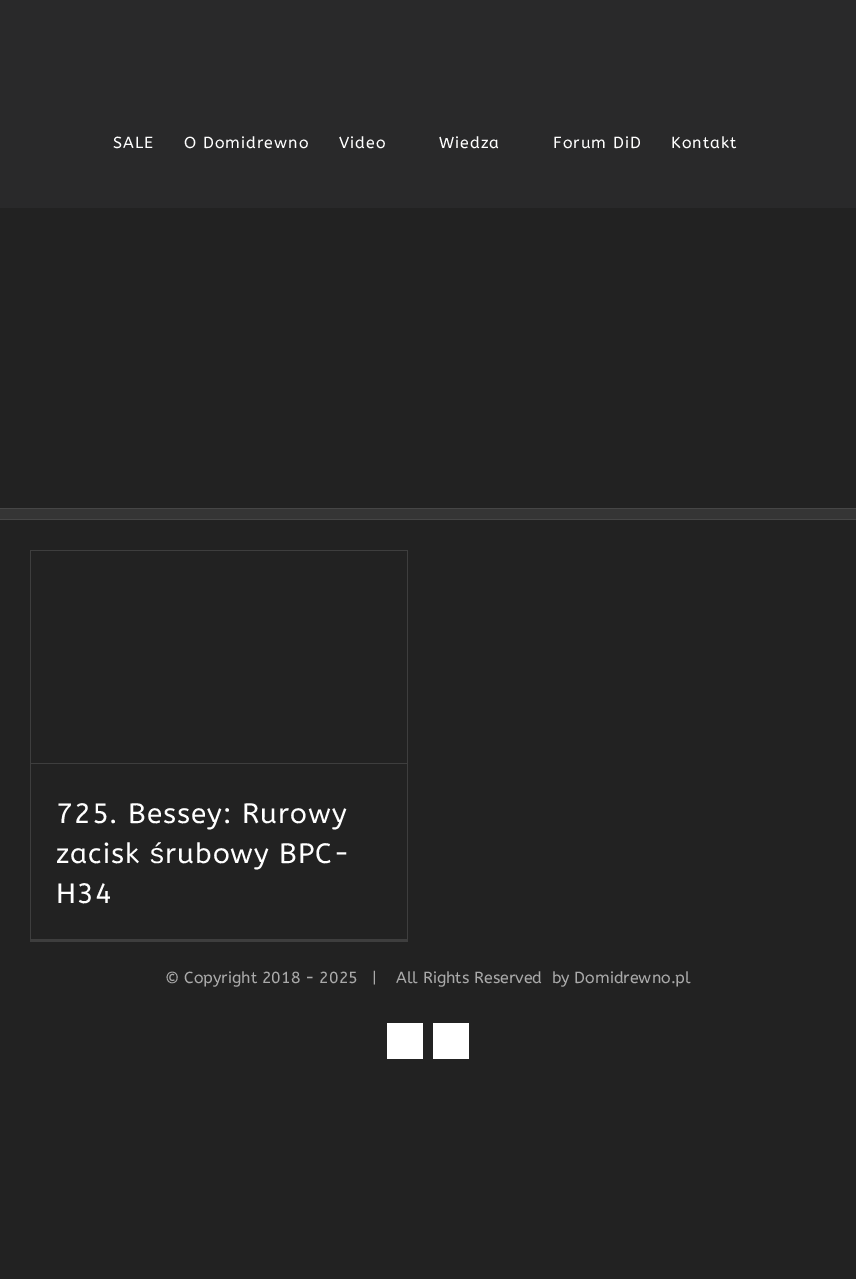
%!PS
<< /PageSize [856 1279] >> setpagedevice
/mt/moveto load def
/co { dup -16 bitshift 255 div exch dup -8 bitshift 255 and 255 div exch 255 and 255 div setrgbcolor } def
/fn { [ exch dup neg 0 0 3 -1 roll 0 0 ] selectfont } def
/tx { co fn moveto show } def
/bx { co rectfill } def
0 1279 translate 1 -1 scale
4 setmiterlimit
0 0 856 1279 16#222222 bx
0 0 856 208 16#29292A bx
0 509 856 10 16#353535 bx
0 508 856 1 16#464646 bx
0 519 856 1 16#464646 bx
30 550 378 1 16#3E3E3E bx
407 550 1 392 16#3E3E3E bx
30 939 378 3 16#3E3E3E bx
30 550 1 392 16#3E3E3E bx
31 763 376 1 16#3E3E3E bx
387 1023 36 36 16#FFFFFF bx
433 1023 36 36 16#FFFFFF bx
/ABeeZee-Regular 16 fn
113 148 mt 1 0 (SALE) ashow
184 148 mt 1 0 (O Domidrewno) ashow
339 148 mt 1 0 (Video) ashow
439 148 mt 1 0 (Wiedza) ashow
553 148 mt 1 0 (Forum DiD) ashow
671 148 mt 1 0 (Kontakt) ashow
/ABeeZee-Regular 28 fn
56 823 mt 1 0 (725. Bessey: Rurowy) ashow
56 863 mt 1 0 (zacisk) ashow
/LiberationSans-Regular 28 fn
150 863 mt 1 0 (ś) ashow
/ABeeZee-Regular 28 fn
165 863 mt 1 0 (rubowy BPC-) ashow
56 903 mt 1 0 (H34) ashow
(© Copyright 2018 - 2025   |    All Rights Reserved  by Domidrewno.pl) 165 983 /ABeeZee-Regular 16 16#AAAAAA tx
showpage
